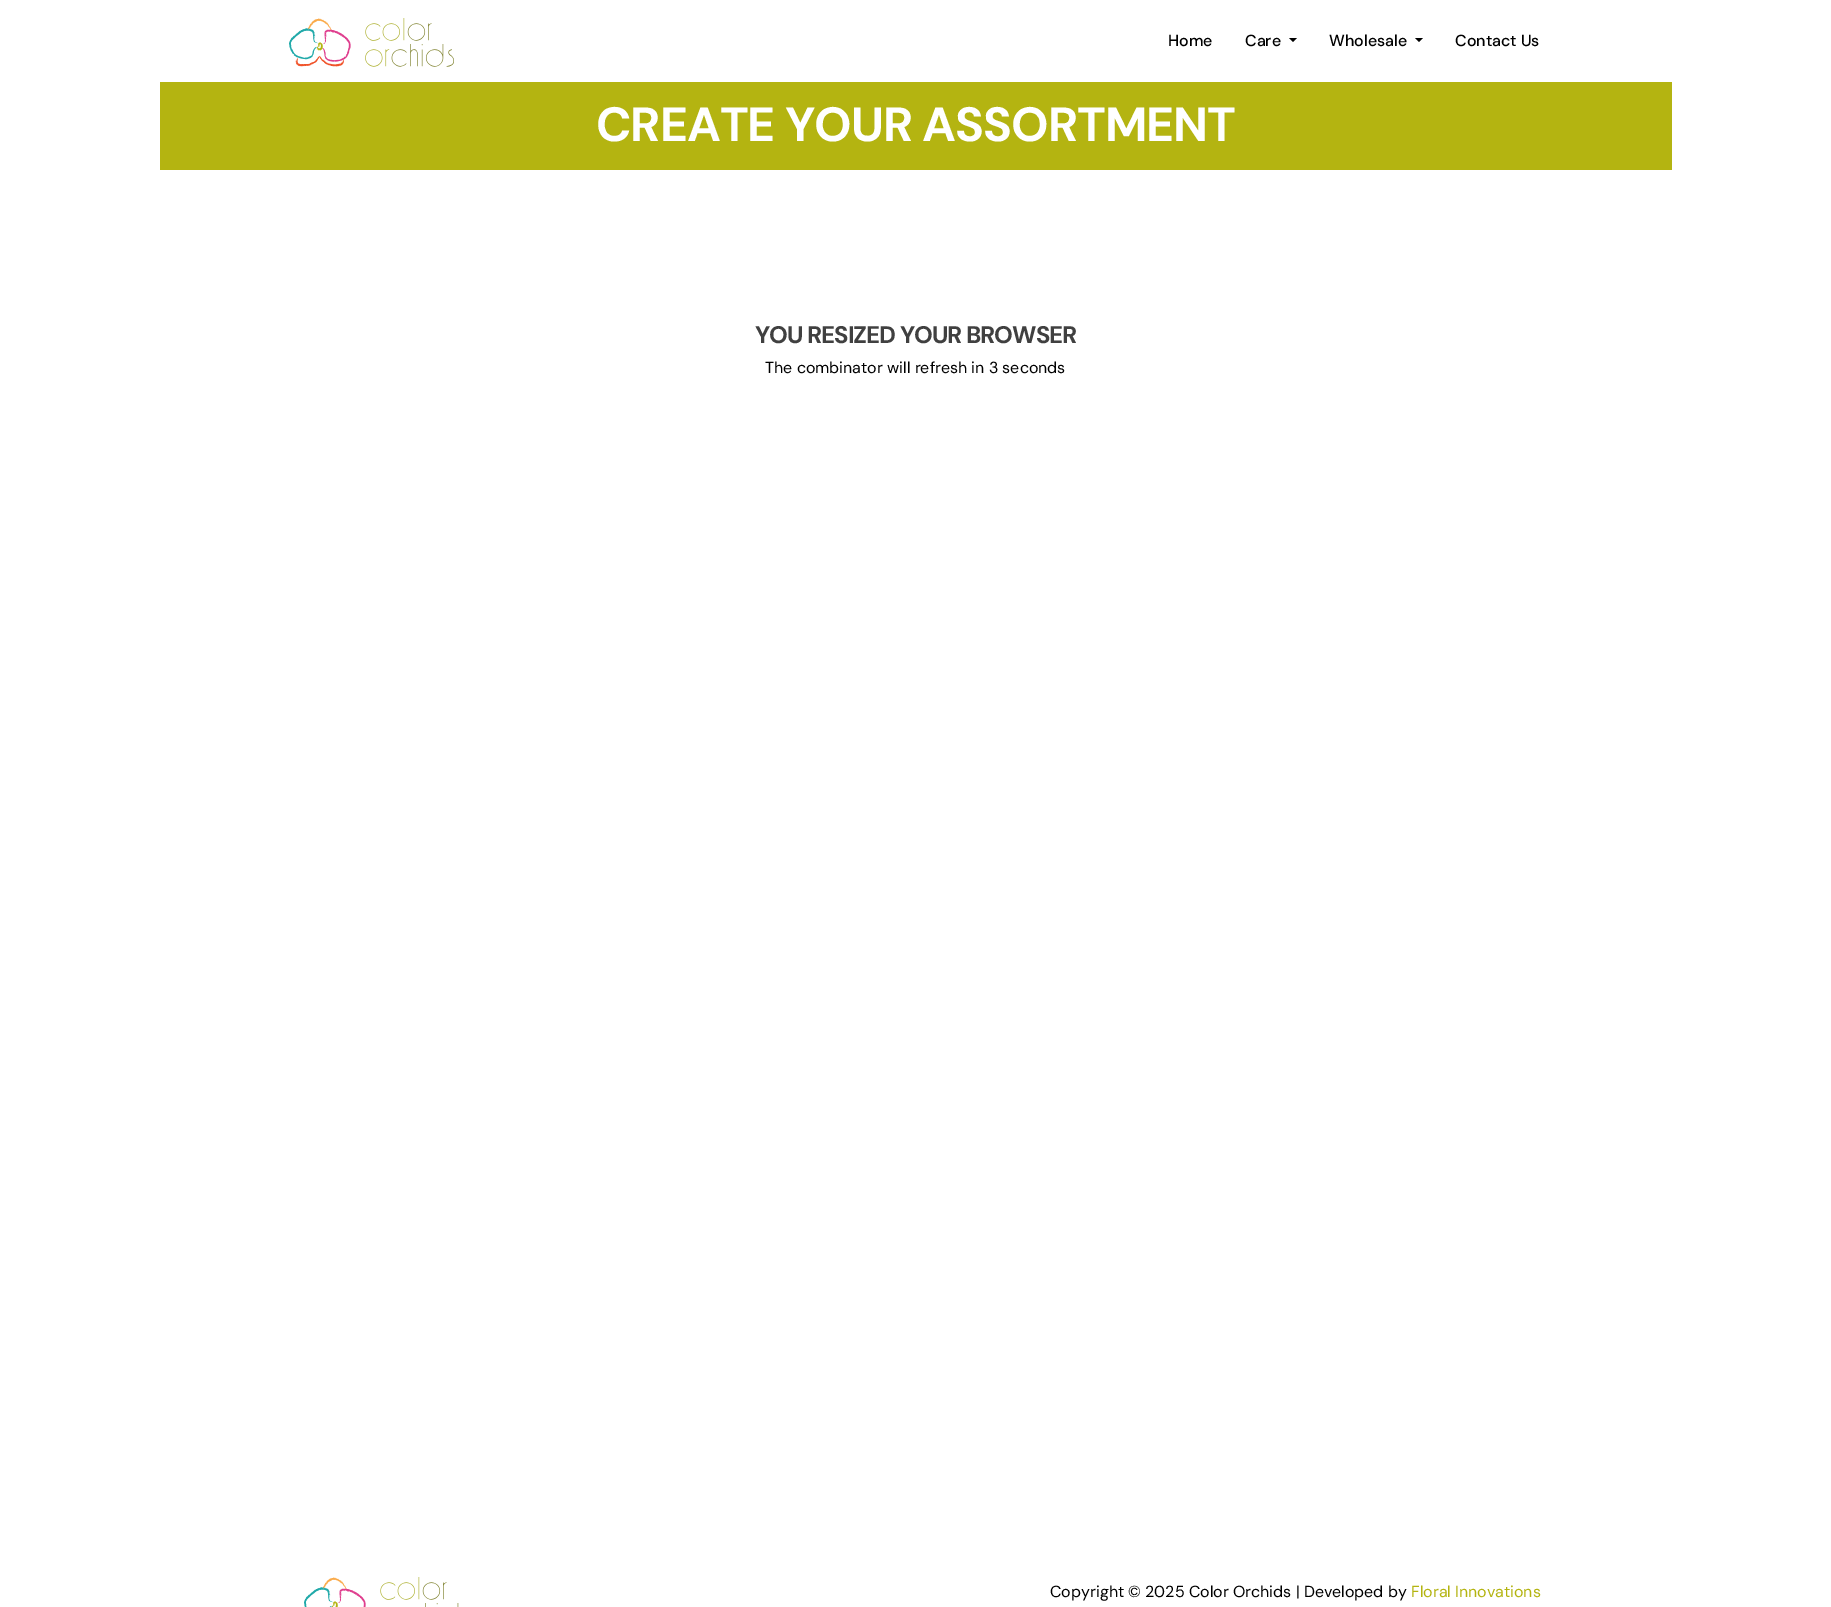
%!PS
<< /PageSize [1831 1607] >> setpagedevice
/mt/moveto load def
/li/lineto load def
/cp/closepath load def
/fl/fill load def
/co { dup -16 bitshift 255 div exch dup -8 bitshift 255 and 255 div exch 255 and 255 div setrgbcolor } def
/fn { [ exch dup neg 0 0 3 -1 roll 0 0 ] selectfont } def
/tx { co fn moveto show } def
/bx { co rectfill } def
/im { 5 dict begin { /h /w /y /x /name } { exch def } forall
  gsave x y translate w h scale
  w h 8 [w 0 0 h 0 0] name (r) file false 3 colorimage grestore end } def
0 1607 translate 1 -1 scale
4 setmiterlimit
0 0 1831 1607 16#FFFFFF bx
(media/1.raw) 289 18 165 49 im
16#000000 co
1289 38 mt 1297 38 li 1293 42 li cp fl
1415 38 mt 1423 38 li 1419 42 li cp fl
160 82 1512 88 16#B4B411 bx
(media/2.raw) 304 1577 155 30 im
(Home) 1168 46 /DMSans-Medium 16 16#000000 tx
(Care) 1245 46 /DMSans-Medium 16 16#000000 tx
(Wholesale) 1329 46 /DMSans-Medium 16 16#000000 tx
(Contact Us) 1455 46 /DMSans-Medium 16 16#000000 tx
/DMSans-Bold 48 fn
16#FFFFFF co
596 141 mt -1 0 (CREATE YOUR ASSORTMENT) ashow
/DMSans-Bold 24 fn
16#404040 co
755 343 mt -1 0 (YOU RESIZED YOUR BROWSER) ashow
(The combinator will refresh in 3 seconds) 765 373 /DMSans-Regular 16 16#000000 tx
(Copyright © 2025 Color Orchids | Developed by) 1050 1597 /DMSans-Regular 16 16#000000 tx
(Floral Innovations) 1411 1597 /DMSans-Regular 16 16#B4B411 tx
showpage
